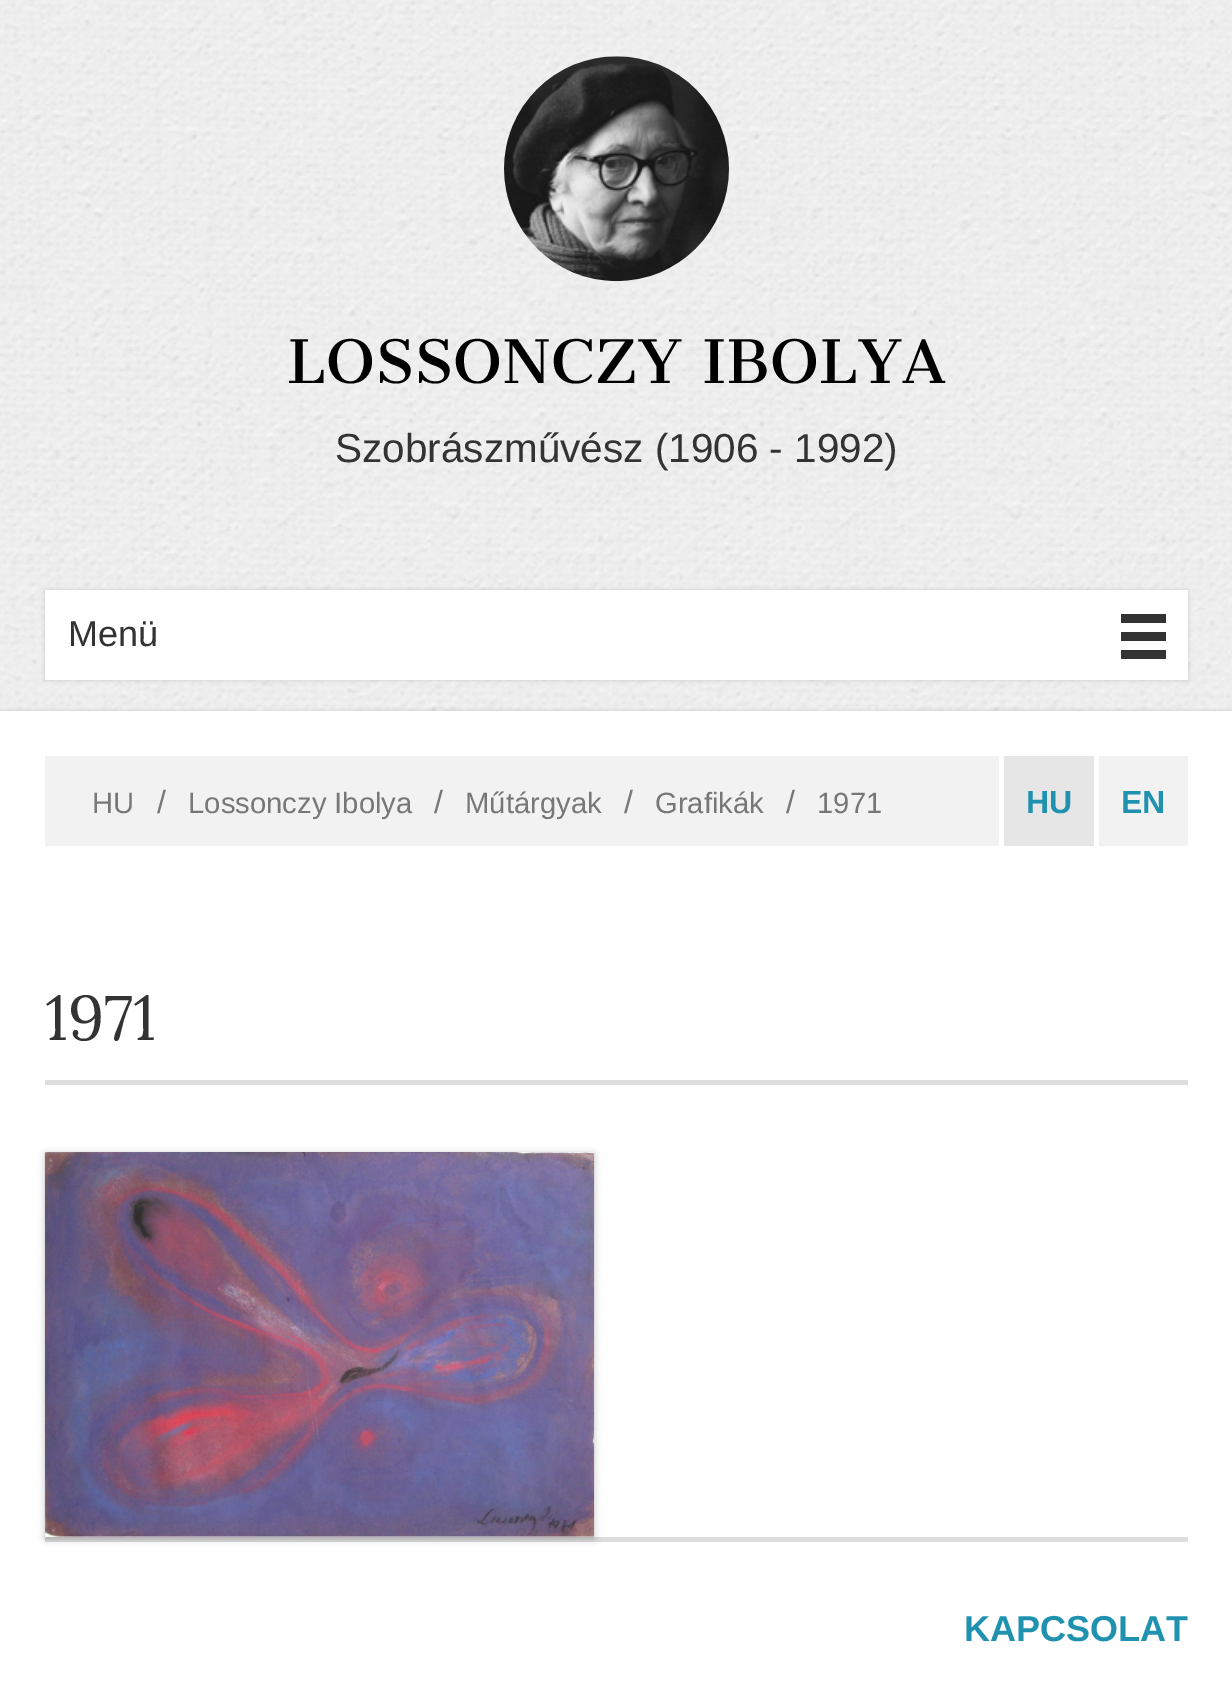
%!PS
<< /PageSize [1232 1686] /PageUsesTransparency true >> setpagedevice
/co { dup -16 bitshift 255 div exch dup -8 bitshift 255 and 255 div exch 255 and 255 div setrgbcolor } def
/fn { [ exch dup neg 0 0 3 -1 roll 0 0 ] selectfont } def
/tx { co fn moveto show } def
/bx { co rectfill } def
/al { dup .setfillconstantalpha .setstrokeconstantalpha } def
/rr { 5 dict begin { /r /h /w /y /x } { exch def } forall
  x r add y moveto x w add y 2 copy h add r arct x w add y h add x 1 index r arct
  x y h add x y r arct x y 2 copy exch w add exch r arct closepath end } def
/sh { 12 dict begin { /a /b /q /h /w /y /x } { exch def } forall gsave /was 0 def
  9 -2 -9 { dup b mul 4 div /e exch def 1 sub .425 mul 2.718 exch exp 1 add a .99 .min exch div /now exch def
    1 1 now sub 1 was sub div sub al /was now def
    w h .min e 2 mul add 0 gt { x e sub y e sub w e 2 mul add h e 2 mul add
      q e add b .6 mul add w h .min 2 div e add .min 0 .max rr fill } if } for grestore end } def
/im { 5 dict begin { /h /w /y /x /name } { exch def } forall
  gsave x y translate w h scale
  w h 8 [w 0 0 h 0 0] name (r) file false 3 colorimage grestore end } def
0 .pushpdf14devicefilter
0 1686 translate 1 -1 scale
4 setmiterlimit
0 0 1232 1686 16#FFFFFF bx
(media/1.raw) 0 0 1232 711 im
(media/2.raw) 504 56 225 226 im
16#000000 co
45 590 1143 90 0 2 .15 sh
45 590 1143 90 16#FFFFFF bx
1121 632 45 9 16#333333 bx
1121 614 45 9 16#333333 bx
1121 650 45 9 16#333333 bx
16#000000 co
0 711 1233 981 0 2 .15 sh
0 711 1232 975 16#FFFFFF bx
45 756 1143 90 16#F2F2F2 bx
999 756 5 90 16#FFFFFF bx
1004 756 90 90 16#E6E6E6 bx
1094 756 5 90 16#FFFFFF bx
45 1080 1143 5 16#DDDDDD bx
45 1537 1143 5 16#DDDDDD bx
16#000000 co
45 1154 549 385 0 3.5 .25 sh
(media/3.raw) 45 1152 549 385 im
(LOSSONCZY IBOLYA) 287 383 /CantataOne-Regular 58.5 16#000000 tx
(Szobrászművész \(1906 - 1992\)) 335 462 /Arimo-Regular 40.5 16#333333 tx
(Menü) 68 646 /Arimo-Regular 36 16#333333 tx
(HU) 92 813 /Arimo-Regular 29.25 16#777777 tx
(/) 157 813 /Arimo-Regular 32 16#777777 tx
(Lossonczy Ibolya) 188 813 /Arimo-Regular 29.25 16#777777 tx
(/) 434 813 /Arimo-Regular 32 16#777777 tx
(Műtárgyak) 465 813 /Arimo-Regular 29.25 16#777777 tx
(/) 624 813 /Arimo-Regular 32 16#777777 tx
(Grafikák) 655 813 /Arimo-Regular 29.25 16#777777 tx
(/) 786 813 /Arimo-Regular 32 16#777777 tx
(1971) 817 813 /Arimo-Regular 29.25 16#777777 tx
(HU) 1026 813 /Arimo-Bold 32 16#2092AF tx
(EN) 1121 813 /Arimo-Bold 32 16#2092AF tx
(1971) 45 1040 /Lora-Regular 63 16#333333 tx
(KAPCSOLAT) 964 1641 /Arimo-Bold 36 16#2092AF tx
.poppdf14devicefilter showpage
